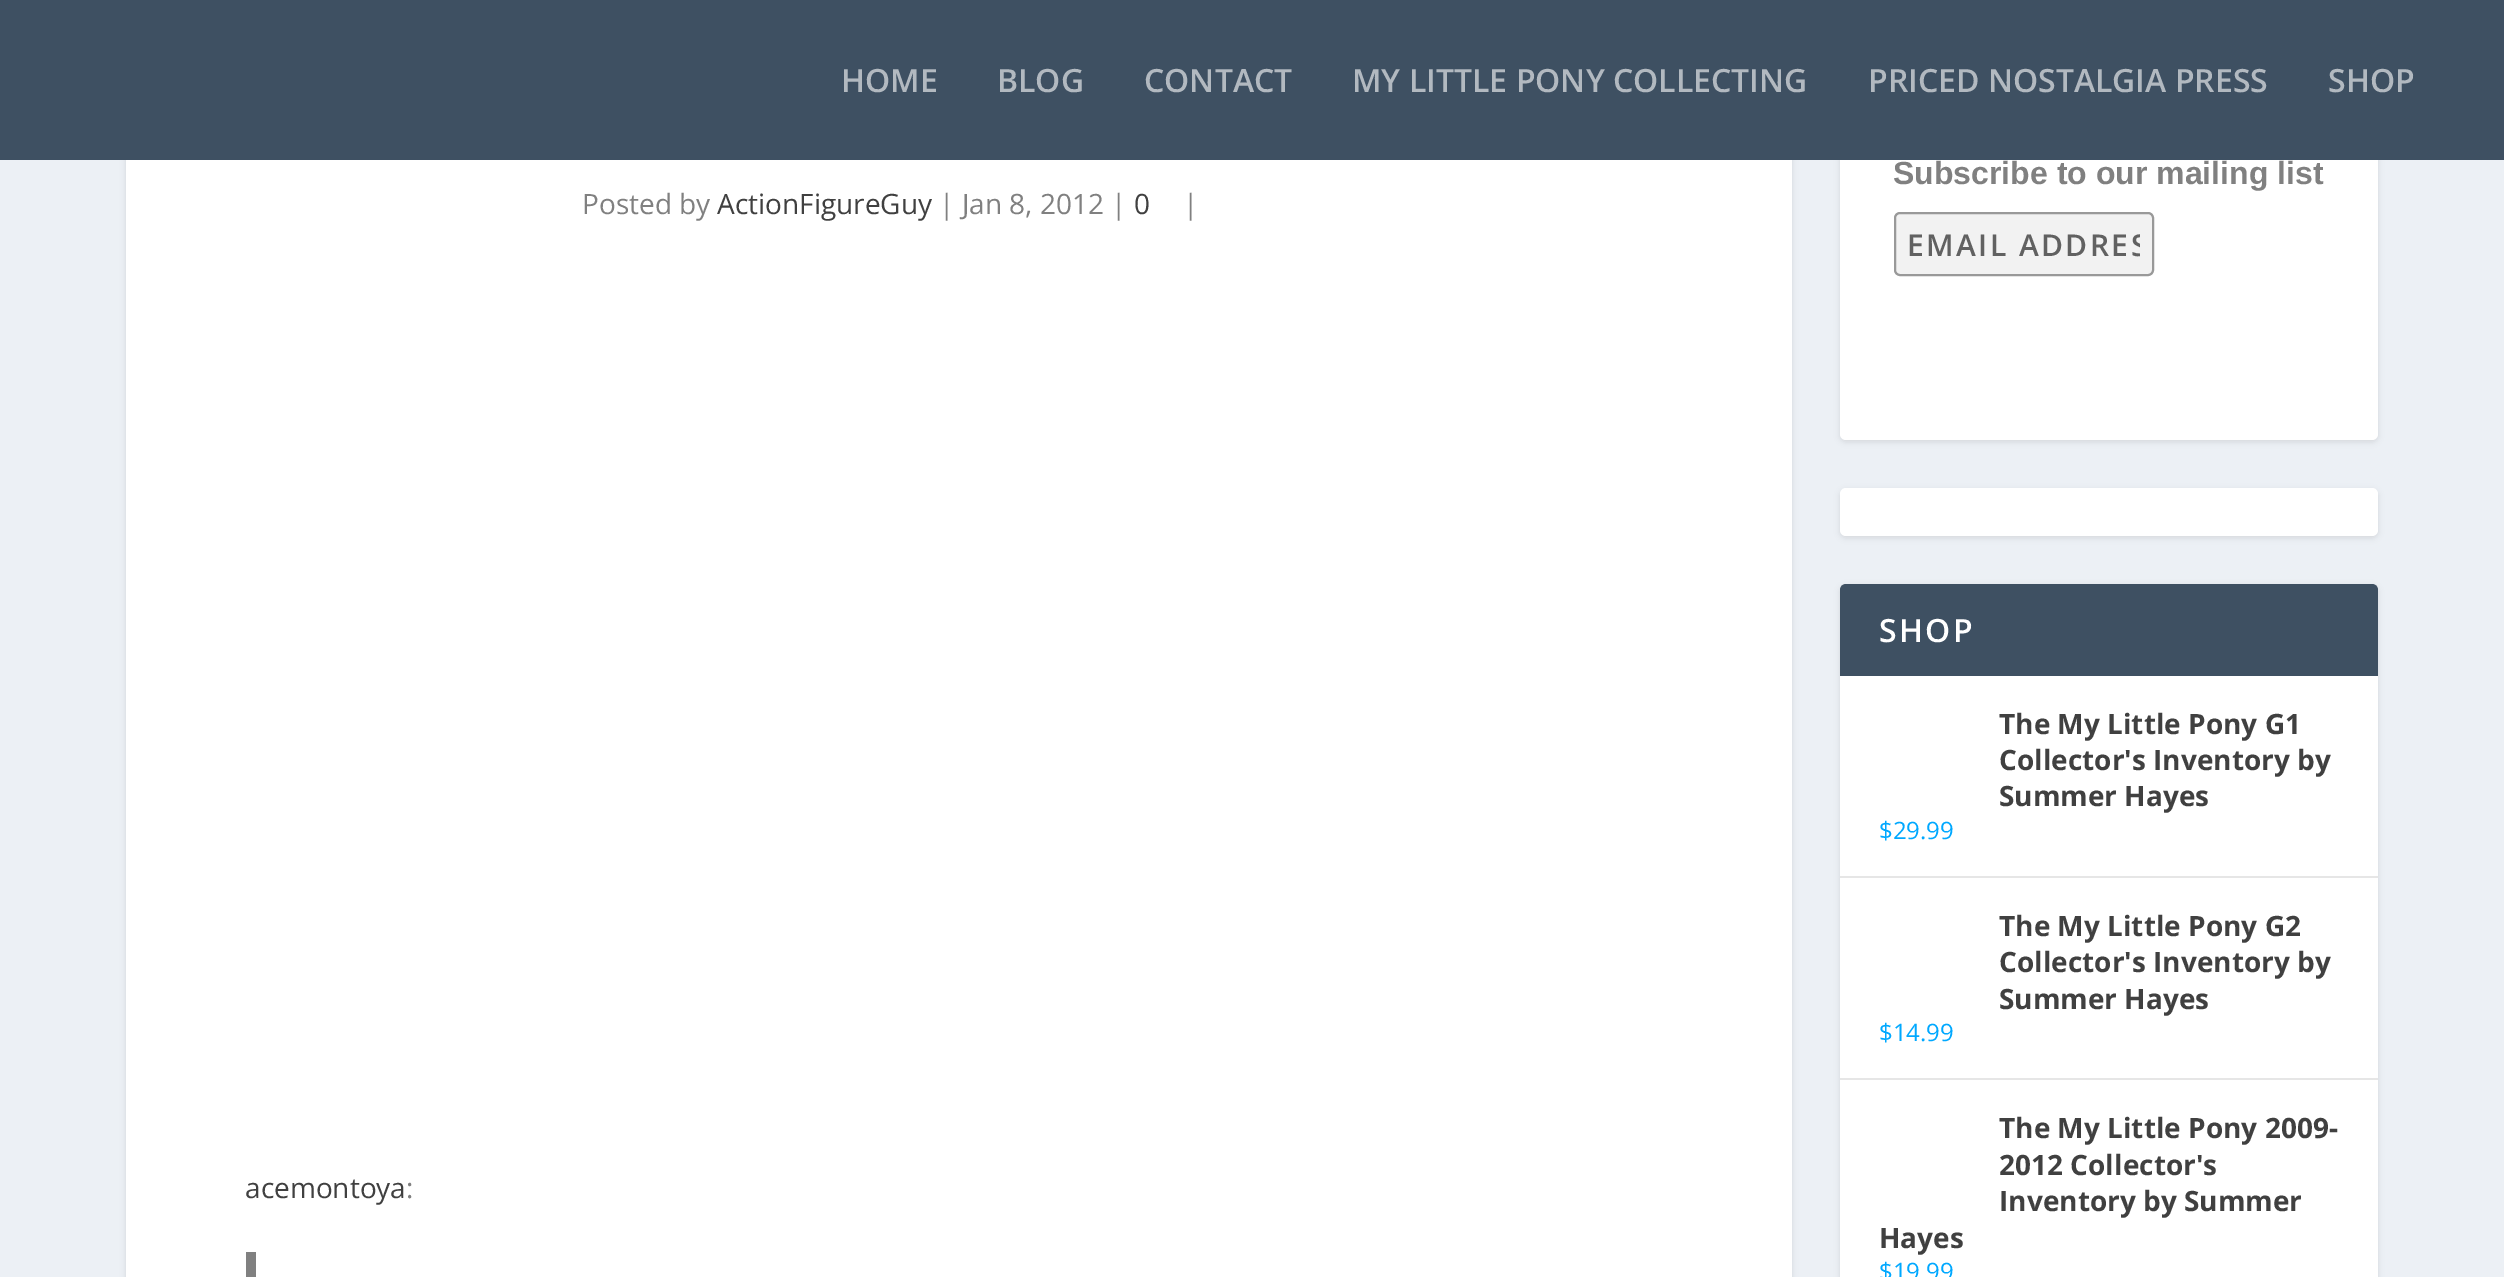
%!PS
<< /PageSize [2504 1277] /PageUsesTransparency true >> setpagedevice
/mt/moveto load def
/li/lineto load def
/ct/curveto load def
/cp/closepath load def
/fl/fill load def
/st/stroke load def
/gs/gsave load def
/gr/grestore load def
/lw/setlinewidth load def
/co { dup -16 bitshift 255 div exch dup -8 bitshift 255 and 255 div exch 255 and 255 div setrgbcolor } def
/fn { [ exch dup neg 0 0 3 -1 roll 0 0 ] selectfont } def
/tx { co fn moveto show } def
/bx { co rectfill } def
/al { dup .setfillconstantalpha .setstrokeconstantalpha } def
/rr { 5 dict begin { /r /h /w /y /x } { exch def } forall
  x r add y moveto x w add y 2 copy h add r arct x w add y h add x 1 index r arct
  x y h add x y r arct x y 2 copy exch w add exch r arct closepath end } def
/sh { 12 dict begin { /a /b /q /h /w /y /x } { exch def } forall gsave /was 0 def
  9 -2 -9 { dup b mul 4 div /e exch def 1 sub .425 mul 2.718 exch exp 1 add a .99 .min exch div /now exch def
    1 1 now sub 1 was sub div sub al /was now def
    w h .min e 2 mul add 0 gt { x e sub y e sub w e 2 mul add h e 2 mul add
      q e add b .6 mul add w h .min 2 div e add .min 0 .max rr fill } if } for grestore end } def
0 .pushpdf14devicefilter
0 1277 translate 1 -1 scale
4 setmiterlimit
0 0 2504 1277 16#ECF0F5 bx
16#000000 co
126 -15 1666 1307 6 3 .1 sh
1840 -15 538 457 6 3 .1 sh
16#FFFFFF co
1840 -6 538 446 6 rr fl
0 0 2504 160 16#3E5062 bx
126 160 1666 1117 16#FFFFFF bx
246 1252 10 25 16#808080 bx
16#F2F2F2 co
1895 213 258 62 5 rr gs fl gr
16#999999 co
2 lw
st
16#000000 co
1840 490 538 48 6 3 .1 sh
16#FFFFFF co
1840 488 538 48 6 rr fl
16#000000 co
1840 586 538 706 6 3 .1 sh
16#FFFFFF co
1840 584 538 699 6 rr fl
16#3E5062 co
1846 584 mt 2372 584 li 2375.5 584 2378 586.5 2378 590 ct 2378 676 li 1840 676 li 1840 590 li 1840 586.5 1842.5 584 1846 584 ct cp fl
1840 876 538 2 16#E6E6E6 bx
1840 1078 538 2 16#E6E6E6 bx
(HOME) 841 92 /OpenSans-SemiBold 32 16#B2B9C0 tx
(BLOG) 997 92 /OpenSans-SemiBold 32 16#B2B9C0 tx
(CONTACT) 1144 92 /OpenSans-SemiBold 32 16#B2B9C0 tx
(MY LITTLE PONY COLLECTING) 1352 92 /OpenSans-SemiBold 32 16#B2B9C0 tx
(PRICED NOSTALGIA PRESS) 1868 92 /OpenSans-SemiBold 32 16#B2B9C0 tx
(SHOP) 2328 92 /OpenSans-SemiBold 32 16#B2B9C0 tx
(Posted by) 582 214 /OpenSans-Regular 28 16#808080 tx
(ActionFigureGuy) 717 214 /OpenSans-Regular 28 16#404040 tx
(| Jan 8, 2012 |) 939 214 /OpenSans-Regular 28 16#808080 tx
(0) 1134 214 /OpenSans-Regular 28 16#404040 tx
(|) 1183 214 /OpenSans-Regular 28 16#808080 tx
(acemontoya) 245 1198 /OpenSans-Regular 28 16#404040 tx
(:) 406 1198 /OpenSans-Regular 28 16#808080 tx
(Subscribe to our mailing list) 1893 184 /LiberationSans-Bold 32 16#808080 tx
gs
1908 224 232 40 rectclip
/OpenSans-SemiBold 30 fn
16#616161 co
1907 256 mt 2.4 0 (EMAIL ADDRES) ashow
gr
/OpenSans-SemiBold 32 fn
16#FFFFFF co
1879 642 mt 2.4 0 (SHOP) ashow
(The My Little Pony G1) 1999 734 /OpenSans-Bold 28 16#404040 tx
(Collector's Inventory by) 1999 770 /OpenSans-Bold 28 16#404040 tx
(Summer Hayes) 1999 806 /OpenSans-Bold 28 16#404040 tx
($29.99) 1879 839 /OpenSans-Regular 24 16#00A8FF tx
(The My Little Pony G2) 1999 936 /OpenSans-Bold 28 16#404040 tx
(Collector's Inventory by) 1999 972 /OpenSans-Bold 28 16#404040 tx
(Summer Hayes) 1999 1009 /OpenSans-Bold 28 16#404040 tx
($14.99) 1879 1041 /OpenSans-Regular 24 16#00A8FF tx
(The My Little Pony 2009-) 1999 1138 /OpenSans-Bold 28 16#404040 tx
(2012 Collector's) 1999 1175 /OpenSans-Bold 28 16#404040 tx
(Inventory by Summer) 1999 1211 /OpenSans-Bold 28 16#404040 tx
(Hayes) 1879 1248 /OpenSans-Bold 28 16#404040 tx
($19.99) 1879 1280 /OpenSans-Regular 24 16#00A8FF tx
.poppdf14devicefilter showpage
